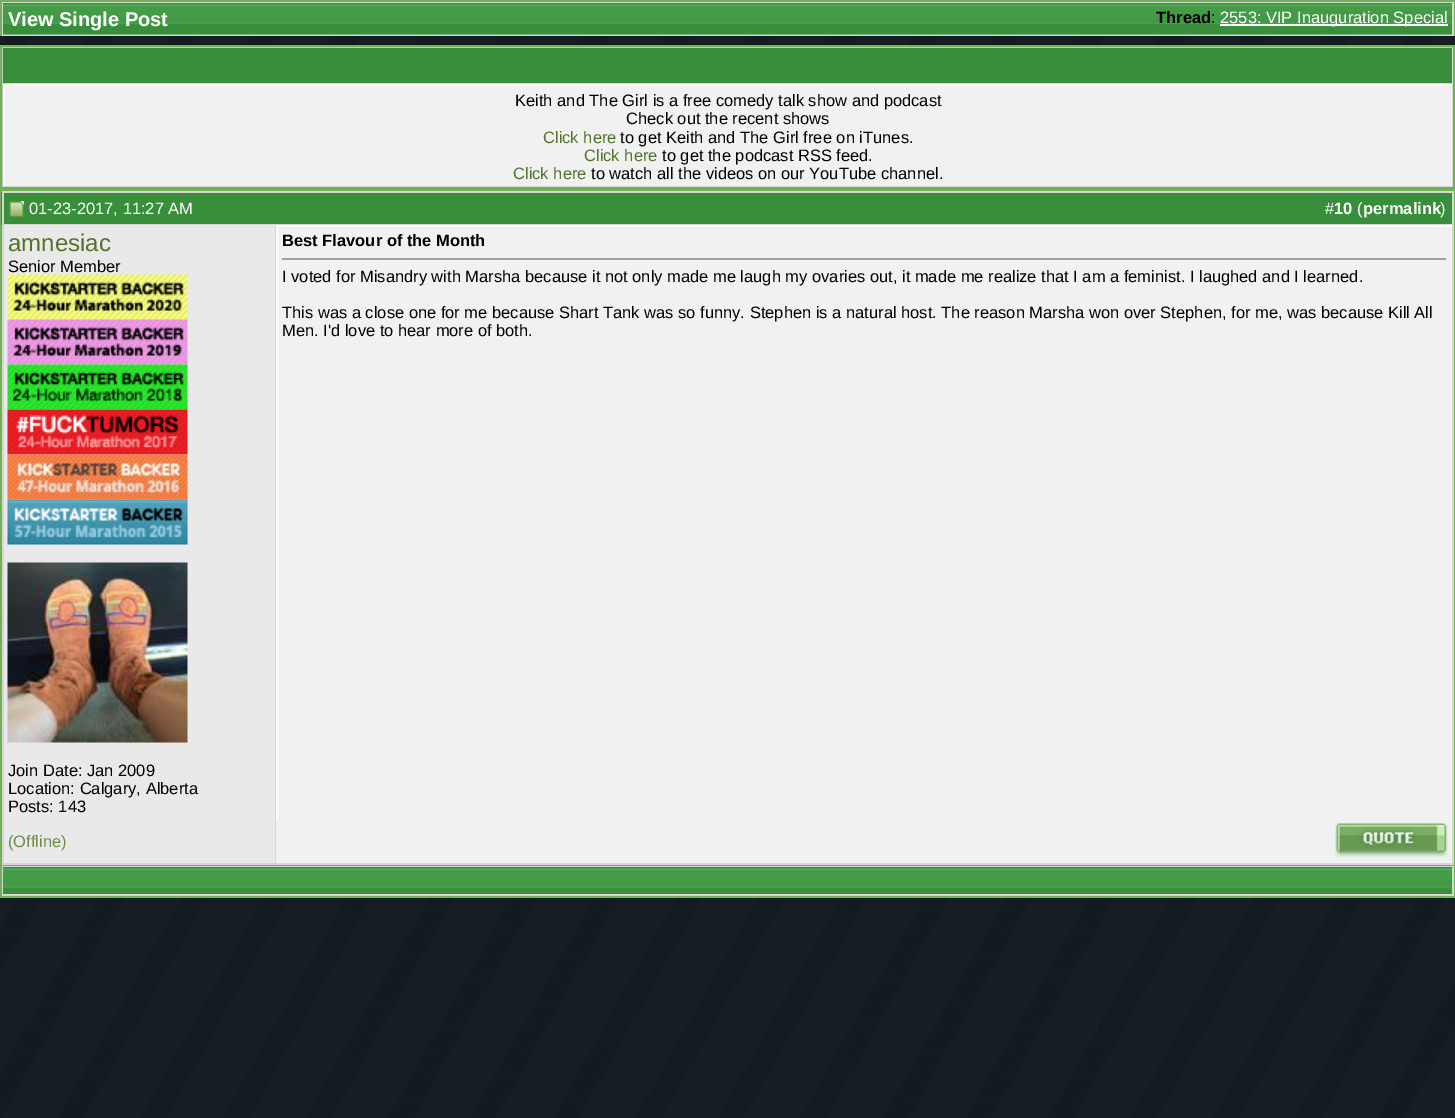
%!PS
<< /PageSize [1455 1118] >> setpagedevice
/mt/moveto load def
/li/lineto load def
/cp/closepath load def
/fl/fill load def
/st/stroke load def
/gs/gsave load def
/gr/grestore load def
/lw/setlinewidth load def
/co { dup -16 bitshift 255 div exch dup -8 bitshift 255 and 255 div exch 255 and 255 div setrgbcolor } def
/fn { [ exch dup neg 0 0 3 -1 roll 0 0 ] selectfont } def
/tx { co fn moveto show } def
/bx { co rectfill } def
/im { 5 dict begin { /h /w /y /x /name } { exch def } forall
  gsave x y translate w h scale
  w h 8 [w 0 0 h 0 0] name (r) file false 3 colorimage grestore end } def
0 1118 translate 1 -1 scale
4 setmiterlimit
0 0 1455 1118 16#FFFFFF bx
(media/1.raw) 0 36 1455 1082 im
2 2 1452 34 16#D6D6D6 bx
0 0 1455 2 16#72B256 bx
1454 0 1 36 16#72B256 bx
0 0 2 36 16#72B256 bx
(media/2.raw) 3 3 1449 32 im
1220 24 228 2 16#FFFFFF bx
16#D6D6D6 co
1 46 mt 1454 46 li 1454 188 li 1 188 li cp gs fl gr
16#72B256 co
2 lw
st
3 48 1449 35 16#388E3A bx
5 86 1447 100 16#F1F1F1 bx
3 84 1449 2 16#FFFFFF bx
3 84 2 102 16#FFFFFF bx
16#72B256 co
1 190 1453 675 rectstroke
1 192 275 33 16#388E3A bx
2 191 1452 2 16#D6D6D6 bx
2 224 274 1 16#D6D6D6 bx
2 191 2 628 16#D6D6D6 bx
(media/3.raw) 9 201 15 17 im
276 193 1176 31 16#388E3A bx
1452 191 2 34 16#D6D6D6 bx
276 224 1178 1 16#D6D6D6 bx
4 225 271 638 16#E9E9E9 bx
275 225 1 639 16#D6D6D6 bx
(media/4.raw) 7 274 181 46 im
(media/5.raw) 7 319 181 46 im
(media/6.raw) 7 364 181 46 im
(media/7.raw) 7 409 181 46 im
(media/8.raw) 7 454 181 46 im
(media/9.raw) 7 499 181 46 im
(media/10.raw) 7 562 181 181 im
278 227 1174 592 16#F1F1F1 bx
276 225 1178 2 16#FFFFFF bx
1452 225 2 639 16#D6D6D6 bx
276 225 2 594 16#FFFFFF bx
282 258 1166 2 16#9F9F9F bx
1446 258 2 2 16#EEEEEE bx
2 863 1452 2 16#D6D6D6 bx
2 819 2 45 16#D6D6D6 bx
276 819 1176 44 16#F1F1F1 bx
(media/11.raw) 1335 823 113 35 im
2 866 1452 30 16#D6D6D6 bx
1454 866 1 31 16#72B256 bx
0 896 1455 2 16#72B256 bx
0 866 2 31 16#72B256 bx
(media/12.raw) 3 867 1449 27 im
(View Single Post) 8 26 /LiberationSans-Bold 20 16#FFFFFF tx
(Thread) 1156 23 /LiberationSans-Bold 16.5 16#000000 tx
(:) 1211 23 /LiberationSans-Regular 16.5 16#000000 tx
(2553: VIP Inauguration Special) 1220 23 /LiberationSans-Regular 16.5 16#FFFFFF tx
(Keith and The Girl is a free comedy talk show and podcast) 515 106 /LiberationSans-Regular 16.5 16#000000 tx
(Check out the recent shows) 626 124 /LiberationSans-Regular 16.5 16#000000 tx
(Click here) 543 143 /LiberationSans-Regular 16.5 16#54732A tx
(to get Keith and The Girl free on iTunes.) 620 143 /LiberationSans-Regular 16.5 16#000000 tx
(Click here) 584 161 /LiberationSans-Regular 16.5 16#54732A tx
(to get the podcast RSS feed.) 662 161 /LiberationSans-Regular 16.5 16#000000 tx
(Click here) 513 179 /LiberationSans-Regular 16.5 16#54732A tx
(to watch all the videos on our YouTube channel.) 591 179 /LiberationSans-Regular 16.5 16#000000 tx
(01-23-2017, 11:27 AM) 29 214 /LiberationSans-Regular 16.5 16#FFFFFF tx
(#) 1325 214 /LiberationSans-Regular 16.5 16#FFFFFF tx
(10) 1334 214 /LiberationSans-Bold 16.5 16#FFFFFF tx
(\() 1357 214 /LiberationSans-Regular 16.5 16#FFFFFF tx
(permalink) 1363 214 /LiberationSans-Bold 16.5 16#FFFFFF tx
(\)) 1440 214 /LiberationSans-Regular 16.5 16#FFFFFF tx
(amnesiac) 8 251 /LiberationSans-Regular 24 16#54732A tx
(Senior Member) 8 272 /LiberationSans-Regular 16.5 16#000000 tx
(Join Date: Jan 2009) 8 776 /LiberationSans-Regular 16.5 16#000000 tx
(Location: Calgary, Alberta) 8 794 /LiberationSans-Regular 16.5 16#000000 tx
(Posts: 143) 8 812 /LiberationSans-Regular 16.5 16#000000 tx
(Best Flavour of the Month) 282 246 /LiberationSans-Bold 16.5 16#000000 tx
(I voted for Misandry with Marsha because it not only made me laugh my ovaries out, it made me realize that I am a feminist. I laughed and I learned.) 282 282 /LiberationSans-Regular 16.5 16#000000 tx
(This was a close one for me because Shart Tank was so funny. Stephen is a natural host. The reason Marsha won over Stephen, for me, was because Kill All) 282 318 /LiberationSans-Regular 16.5 16#000000 tx
(Men. I'd love to hear more of both.) 282 336 /LiberationSans-Regular 16.5 16#000000 tx
(\(Offline\)) 8 847 /LiberationSans-Regular 16.5 16#708A4D tx
showpage
